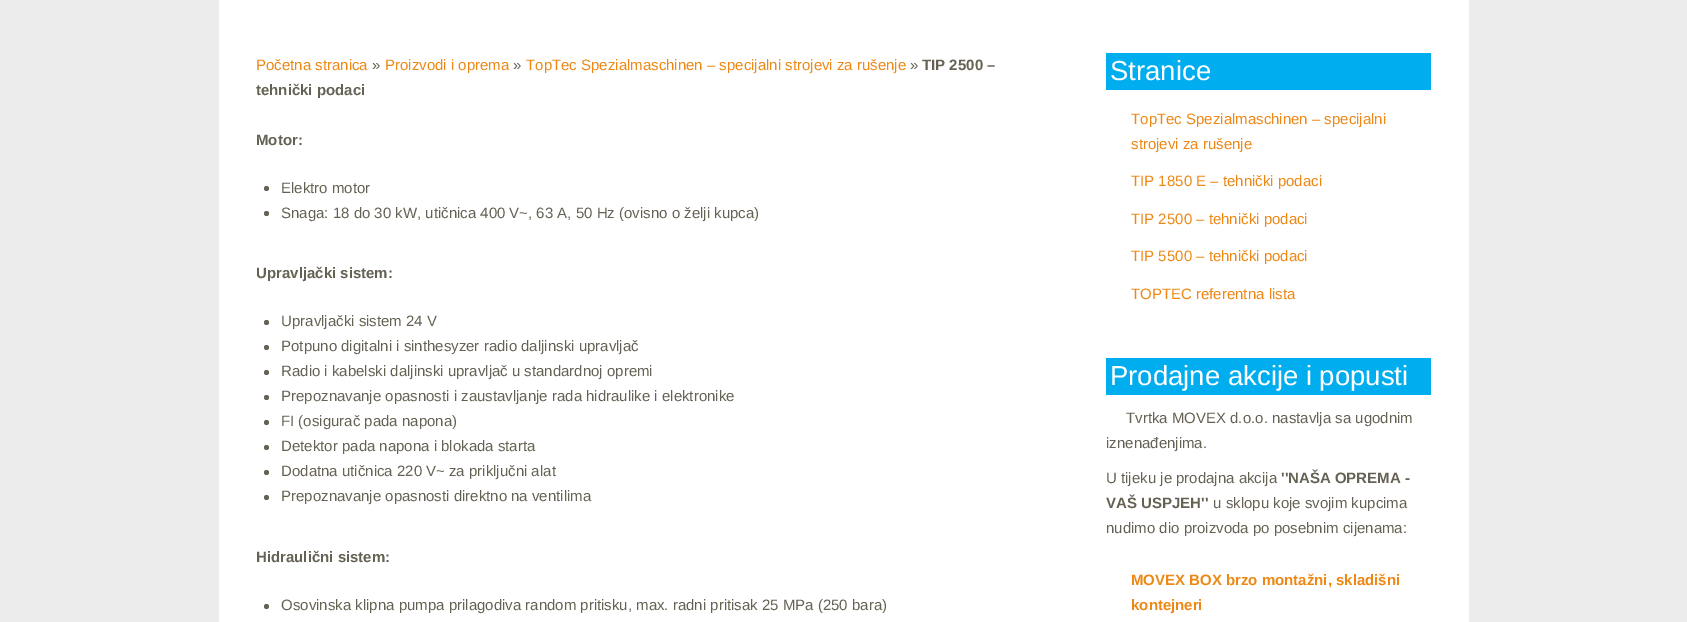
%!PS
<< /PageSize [1687 622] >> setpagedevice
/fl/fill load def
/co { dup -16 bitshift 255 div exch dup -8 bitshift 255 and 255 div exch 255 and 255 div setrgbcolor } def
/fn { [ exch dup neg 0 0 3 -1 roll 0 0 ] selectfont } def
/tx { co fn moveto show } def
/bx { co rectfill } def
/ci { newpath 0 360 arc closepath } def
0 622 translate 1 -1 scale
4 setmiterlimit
0 0 1687 622 16#EBECEB bx
219 0 1250 622 16#FFFFFF bx
16#656253 co
266.5 188.5 2.5 ci fl
266.5 213.5 2.5 ci fl
266.5 322.5 2.5 ci fl
266.5 347.5 2.5 ci fl
266.5 372.5 2.5 ci fl
266.5 397.5 2.5 ci fl
266.5 422.5 2.5 ci fl
266.5 447.5 2.5 ci fl
266.5 472.5 2.5 ci fl
266.5 497.5 2.5 ci fl
266.5 606.5 2.5 ci fl
1106 53 325 37 16#00ADEF bx
1106 358 325 37 16#00ADEF bx
(Početna stranica) 256 70 /LiberationSans-Regular 15 16#ED8815 tx
(») 372 70 /LiberationSans-Regular 15 16#656253 tx
(Proizvodi i oprema) 385 70 /LiberationSans-Regular 15 16#ED8815 tx
(») 513 70 /LiberationSans-Regular 15 16#656253 tx
(TopTec Spezialmaschinen – specijalni strojevi za rušenje) 526 70 /LiberationSans-Regular 15 16#ED8815 tx
(») 910 70 /LiberationSans-Regular 15 16#656253 tx
(TIP 2500 –) 922 70 /LiberationSans-Bold 15 16#656253 tx
(tehnički podaci) 256 95 /LiberationSans-Bold 15 16#656253 tx
(Motor:) 256 145 /LiberationSans-Bold 15 16#656253 tx
(Elektro motor) 281 193 /LiberationSans-Regular 15 16#656253 tx
(Snaga: 18 do 30 kW, utičnica 400 V~, 63 A, 50 Hz \(ovisno o želji kupca\)) 281 218 /LiberationSans-Regular 15 16#656253 tx
(Upravljački sistem:) 256 278 /LiberationSans-Bold 15 16#656253 tx
(Upravljački sistem 24 V) 281 326 /LiberationSans-Regular 15 16#656253 tx
(Potpuno digitalni i sinthesyzer radio daljinski upravljač) 281 351 /LiberationSans-Regular 15 16#656253 tx
(Radio i kabelski daljinski upravljač u standardnoj opremi) 281 376 /LiberationSans-Regular 15 16#656253 tx
(Prepoznavanje opasnosti i zaustavljanje rada hidraulike i elektronike) 281 401 /LiberationSans-Regular 15 16#656253 tx
(FI \(osigurač pada napona\)) 281 426 /LiberationSans-Regular 15 16#656253 tx
(Detektor pada napona i blokada starta) 281 451 /LiberationSans-Regular 15 16#656253 tx
(Dodatna utičnica 220 V~ za priključni alat) 281 476 /LiberationSans-Regular 15 16#656253 tx
(Prepoznavanje opasnosti direktno na ventilima) 281 501 /LiberationSans-Regular 15 16#656253 tx
(Hidraulični sistem:) 256 562 /LiberationSans-Bold 15 16#656253 tx
(Osovinska klipna pumpa prilagodiva random pritisku, max. radni pritisak 25 MPa \(250 bara\)) 281 610 /LiberationSans-Regular 15 16#656253 tx
(Stranice) 1110 80 /LiberationSans-Regular 27.5 16#FFFFFF tx
(TopTec Spezialmaschinen – specijalni) 1131 124 /LiberationSans-Regular 15 16#ED8815 tx
(strojevi za rušenje) 1131 149 /LiberationSans-Regular 15 16#ED8815 tx
(TIP 1850 E – tehnički podaci) 1131 186 /LiberationSans-Regular 15 16#ED8815 tx
(TIP 2500 – tehnički podaci) 1131 224 /LiberationSans-Regular 15 16#ED8815 tx
(TIP 5500 – tehnički podaci) 1131 261 /LiberationSans-Regular 15 16#ED8815 tx
(TOPTEC referentna lista) 1131 299 /LiberationSans-Regular 15 16#ED8815 tx
(Prodajne akcije i popusti) 1110 385 /LiberationSans-Regular 27.5 16#FFFFFF tx
(Tvrtka MOVEX d.o.o. nastavlja sa ugodnim) 1126 423 /LiberationSans-Regular 15 16#656253 tx
(iznenađenjima.) 1106 448 /LiberationSans-Regular 15 16#656253 tx
(U tijeku je prodajna akcija) 1106 483 /LiberationSans-Regular 15 16#656253 tx
(''NAŠA OPREMA -) 1281 483 /LiberationSans-Bold 15 16#656253 tx
(VAŠ USPJEH'') 1106 508 /LiberationSans-Bold 15 16#656253 tx
(u sklopu koje svojim kupcima) 1213 508 /LiberationSans-Regular 15 16#656253 tx
(nudimo dio proizvoda po posebnim cijenama:) 1106 533 /LiberationSans-Regular 15 16#656253 tx
(MOVEX BOX brzo montažni, skladišni) 1131 585 /LiberationSans-Bold 15 16#ED8815 tx
(kontejneri) 1131 610 /LiberationSans-Bold 15 16#ED8815 tx
showpage
